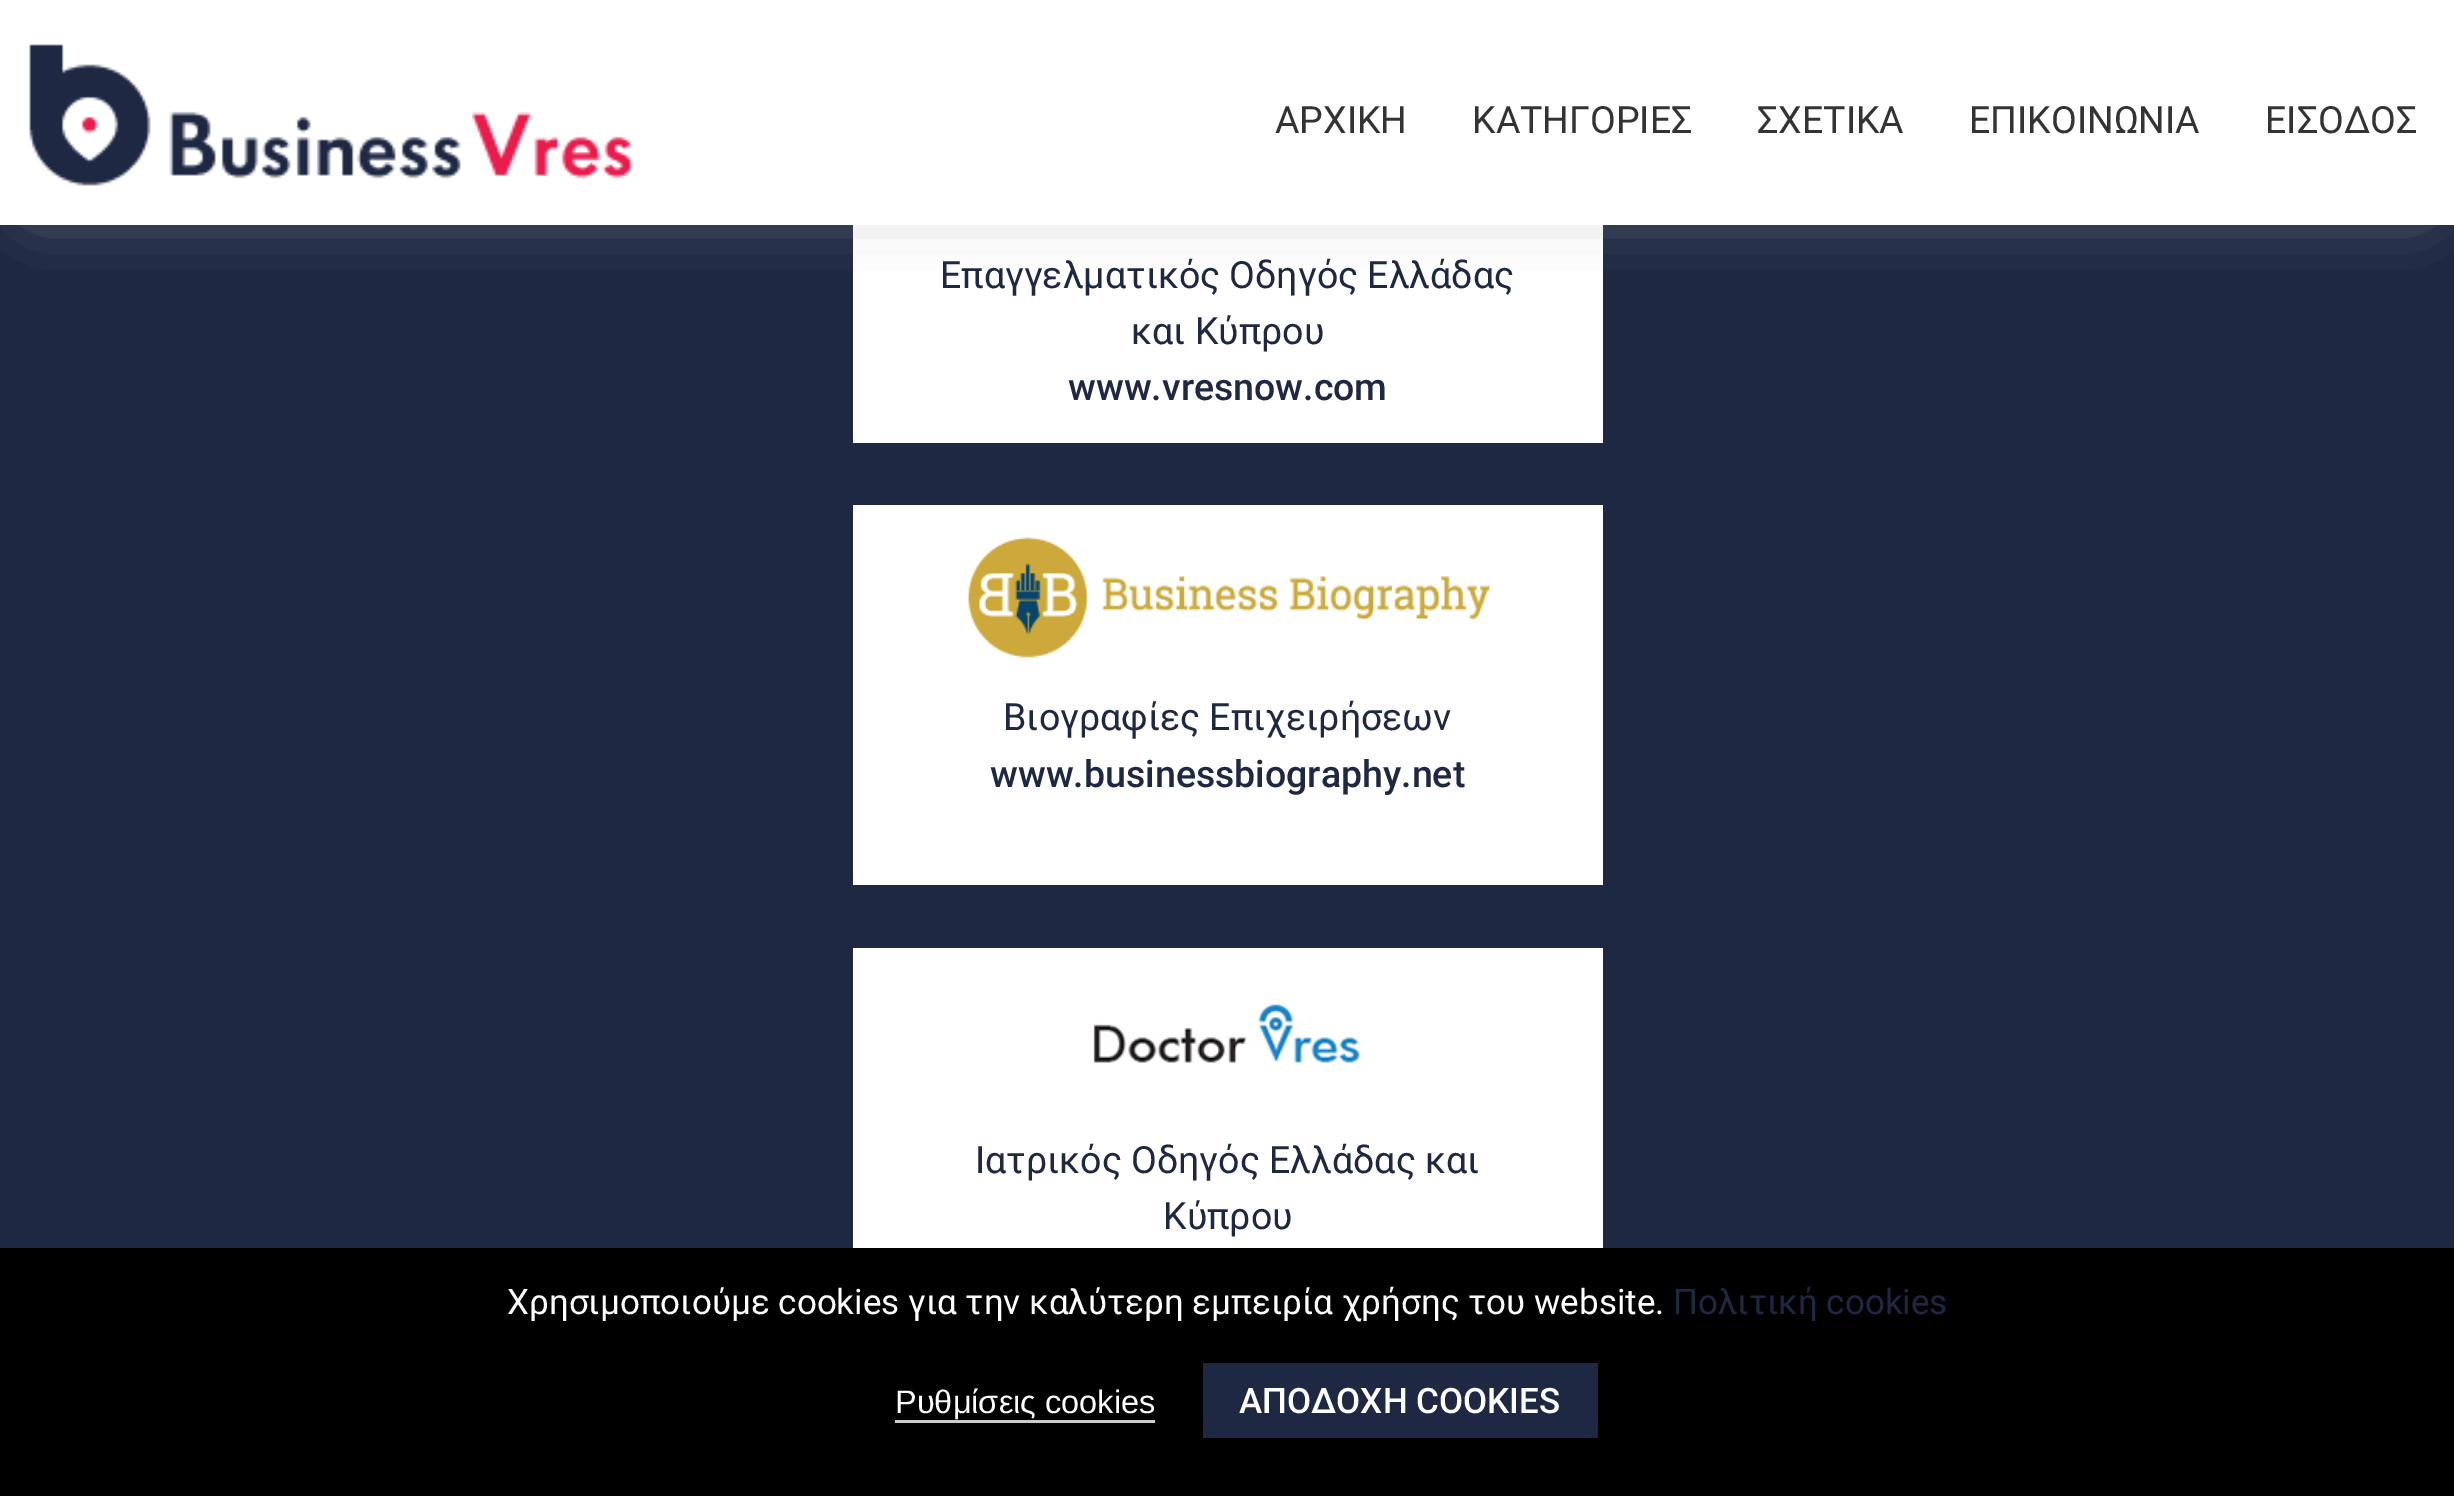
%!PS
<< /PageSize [2454 1496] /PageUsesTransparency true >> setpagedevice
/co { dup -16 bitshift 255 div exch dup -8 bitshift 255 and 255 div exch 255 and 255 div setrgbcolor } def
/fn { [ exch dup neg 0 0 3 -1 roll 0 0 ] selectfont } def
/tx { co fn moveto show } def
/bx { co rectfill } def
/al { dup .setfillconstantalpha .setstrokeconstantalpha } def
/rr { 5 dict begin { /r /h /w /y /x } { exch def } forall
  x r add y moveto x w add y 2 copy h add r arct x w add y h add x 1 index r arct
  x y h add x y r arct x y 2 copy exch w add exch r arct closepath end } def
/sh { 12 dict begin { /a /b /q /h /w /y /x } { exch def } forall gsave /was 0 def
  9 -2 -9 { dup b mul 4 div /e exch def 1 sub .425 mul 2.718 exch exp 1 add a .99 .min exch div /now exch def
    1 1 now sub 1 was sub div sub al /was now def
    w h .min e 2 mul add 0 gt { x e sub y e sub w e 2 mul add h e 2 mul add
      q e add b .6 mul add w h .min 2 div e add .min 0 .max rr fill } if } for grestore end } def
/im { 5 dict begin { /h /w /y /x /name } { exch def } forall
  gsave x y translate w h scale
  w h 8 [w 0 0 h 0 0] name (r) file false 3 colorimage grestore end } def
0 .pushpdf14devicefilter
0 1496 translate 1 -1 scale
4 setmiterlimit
0 0 2454 1496 16#1E2843 bx
853 225 750 218 16#FFFFFF bx
16#AAAAAA co
38 50 2380 150 0 31 1 sh
0 0 2454 225 16#FFFFFF bx
(media/1.raw) 29 44 605 142 im
853 505 750 380 16#FFFFFF bx
(media/2.raw) 968 537 522 121 im
853 948 750 300 16#FFFFFF bx
(media/3.raw) 1092 1004 268 59 im
0 1248 2454 248 16#000000 bx
895 1420 260 3 16#CCCCCC bx
1203 1363 395 75 16#1E2843 bx
(ΑΡΧΙΚΗ) 1275 133 /Roboto-Regular 37.5 16#333333 tx
(ΚΑΤΗΓΟΡΙΕΣ) 1472 133 /Roboto-Regular 37.5 16#333333 tx
(ΣΧΕΤΙΚΑ) 1757 133 /Roboto-Regular 37.5 16#333333 tx
(ΕΠΙΚΟΙΝΩΝΙΑ) 1969 133 /Roboto-Regular 37.5 16#333333 tx
(ΕΙΣΟΔΟΣ) 2265 133 /Roboto-Regular 37.5 16#333333 tx
(Επαγγελματικός Οδηγός Ελλάδας) 940 288 /Roboto-Regular 37.5 16#1E2843 tx
(και Κύπρου) 1131 344 /Roboto-Regular 37.5 16#1E2843 tx
(www.vresnow.com) 1068 400 /Roboto-Medium 37.5 16#1E2843 tx
(Βιογραφίες Επιχειρήσεων) 1003 730 /Roboto-Regular 37.5 16#1E2843 tx
(www.businessbiography.net) 990 787 /Roboto-Medium 37.5 16#1E2843 tx
(Ιατρικός Οδηγός Ελλάδας και) 975 1173 /Roboto-Regular 37.5 16#1E2843 tx
(Κύπρου) 1163 1229 /Roboto-Regular 37.5 16#1E2843 tx
(Χρησιμοποιούμε cookies για την καλύτερη εμπειρία χρήσης του website.) 507 1314 /Roboto-Regular 35 16#FFFFFF tx
(Πολιτική cookies) 1673 1314 /Roboto-Regular 35 16#1E2843 tx
(Ρυθμίσεις cookies) 895 1413 /LiberationSans-Regular 32.5 16#FFFFFF tx
(ΑΠΟΔΟΧΗ COOKIES) 1239 1413 /Roboto-Medium 35 16#FFFFFF tx
.poppdf14devicefilter showpage
